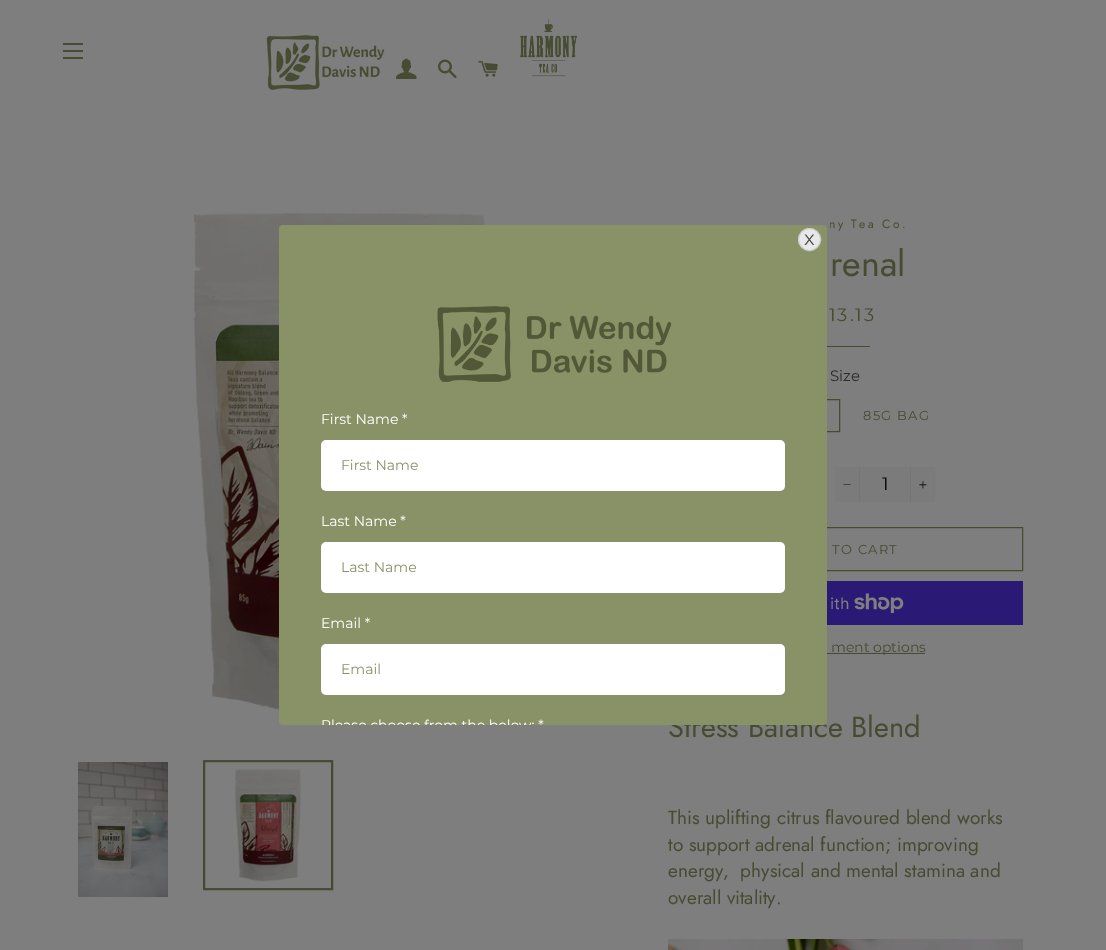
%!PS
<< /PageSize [1106 950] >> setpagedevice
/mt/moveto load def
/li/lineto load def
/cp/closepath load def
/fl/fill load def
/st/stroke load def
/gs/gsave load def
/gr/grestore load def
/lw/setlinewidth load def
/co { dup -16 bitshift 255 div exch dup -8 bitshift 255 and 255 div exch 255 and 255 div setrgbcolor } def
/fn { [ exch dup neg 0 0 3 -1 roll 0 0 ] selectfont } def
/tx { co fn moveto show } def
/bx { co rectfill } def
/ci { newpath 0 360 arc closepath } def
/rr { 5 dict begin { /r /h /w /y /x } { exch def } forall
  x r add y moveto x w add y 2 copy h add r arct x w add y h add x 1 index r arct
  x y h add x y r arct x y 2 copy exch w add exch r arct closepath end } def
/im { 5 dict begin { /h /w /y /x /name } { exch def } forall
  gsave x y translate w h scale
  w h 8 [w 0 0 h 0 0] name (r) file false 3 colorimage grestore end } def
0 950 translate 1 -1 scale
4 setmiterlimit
0 0 1106 950 16#7E7E7E bx
63 43 20 2 16#464B31 bx
63 50 20 2 16#464B31 bx
63 57 20 2 16#464B31 bx
(media/1.raw) 266 35 119 55 im
(media/2.raw) 396 58 21 21 im
(media/3.raw) 438 59 19 19 im
(media/4.raw) 478 61 20 16 im
(media/5.raw) 520 18 57 59 im
(media/6.raw) 194 212 292 498 im
(media/7.raw) 78 762 90 135 im
2 lw
204 761 128 128 rectstroke
(media/8.raw) 235 769 66 113 im
820 346 50 1 16#464B31 bx
1 lw
747.5 399.5 92 32 rectstroke
835 467 100 35 16#7B7B7B bx
859 467 1 35 16#757575 bx
16#0E0F0F co
843.5 484.5 mt 850.5 484.5 li 850.5 485 li 843.5 485 li cp fl
910 467 1 35 16#757575 bx
(media/9.raw) 919 481 8 8 im
16#464B31 co
668.5 527.5 354 43 rectstroke
827 581 196 44 16#2A1A76 bx
(media/10.raw) 854 593 50 20 im
827 653 98 1 16#464B31 bx
(media/11.raw) 668 939 355 11 im
/Jost-Regular 12 fn
829 228 mt 2.4 0 (ny Tea Co.) ashow
(renal) 830 276 /Jost-Regular 36 16#464B31 tx
/Montserrat-Regular 18 fn
829 321 mt 2 0 (13.13) ashow
(Size) 830 381 /Montserrat-Regular 15 16#2B2B2B tx
/Montserrat-Regular 13 fn
16#464B31 co
863 420 mt 1.25 0 (85G BAG) ashow
(1) 882 490 /Montserrat-Regular 18 16#0E0F0F tx
/Montserrat-Regular 13 fn
16#464B31 co
832 554 mt 1.25 0 (TO CART) ashow
(ith) 830 609 /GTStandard-Regular 16 16#808080 tx
(ment options) 831 652 /Montserrat-Regular 14 16#464B31 tx
(Stress Balance Blend) 668 737 /Jost-Regular 29 16#464B31 tx
(This uplifting citrus flavoured blend works) 668 824 /Jost-Regular 19 16#464B31 tx
(to support adrenal function; improving) 668 851 /Jost-Regular 19 16#464B31 tx
(energy,  physical and mental stamina and) 668 877 /Jost-Regular 19 16#464B31 tx
(overall vitality.) 668 904 /Jost-Regular 19 16#464B31 tx
16#899266 co
279 225 548 500 4 rr fl
16#E8E8E8 co
809.5 239.5 11 ci gs fl gr
16#CCCCCC co
st
(x) 804 245 /Montserrat-Regular 20 16#4A4A4A tx
(media/12.raw) 321 306 464 419 im
showpage
